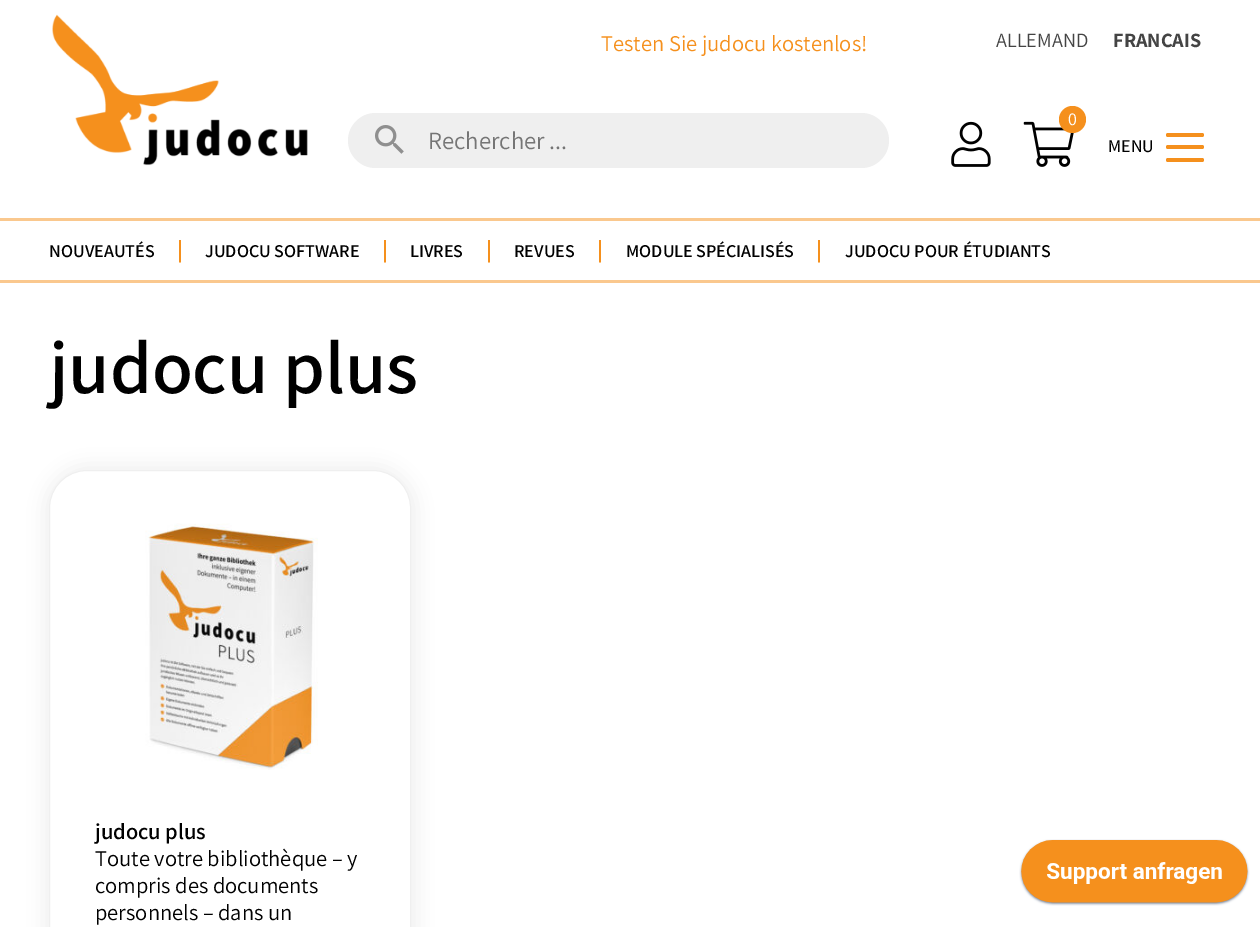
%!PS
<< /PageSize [1260 927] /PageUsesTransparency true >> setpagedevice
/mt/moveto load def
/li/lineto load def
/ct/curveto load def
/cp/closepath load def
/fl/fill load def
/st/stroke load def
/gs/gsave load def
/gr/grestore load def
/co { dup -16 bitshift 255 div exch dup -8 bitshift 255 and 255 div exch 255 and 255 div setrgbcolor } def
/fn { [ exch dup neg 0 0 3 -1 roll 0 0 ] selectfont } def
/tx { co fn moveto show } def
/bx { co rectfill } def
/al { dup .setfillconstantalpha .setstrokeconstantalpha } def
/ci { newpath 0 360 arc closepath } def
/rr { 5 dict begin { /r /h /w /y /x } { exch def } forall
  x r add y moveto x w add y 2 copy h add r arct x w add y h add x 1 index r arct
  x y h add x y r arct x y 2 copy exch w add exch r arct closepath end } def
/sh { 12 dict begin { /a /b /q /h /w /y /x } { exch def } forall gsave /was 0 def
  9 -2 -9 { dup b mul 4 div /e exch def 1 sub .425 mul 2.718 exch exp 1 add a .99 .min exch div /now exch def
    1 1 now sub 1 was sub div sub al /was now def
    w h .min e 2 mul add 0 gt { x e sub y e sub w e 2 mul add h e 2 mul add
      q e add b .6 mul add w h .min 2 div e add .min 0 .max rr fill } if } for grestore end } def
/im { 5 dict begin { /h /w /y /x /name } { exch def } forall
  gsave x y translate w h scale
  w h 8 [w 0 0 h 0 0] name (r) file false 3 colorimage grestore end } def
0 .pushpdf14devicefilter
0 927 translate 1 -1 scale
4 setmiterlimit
0 0 1260 927 16#FFFFFF bx
0 280 1260 3 16#FAC88E bx
(media/1.raw) 52 14 256 152 im
16#EFEFEF co
375.5 113 mt 416 113 li 416 168 li 375.5 168 li 360.5 168 348 155.5 348 140.5 ct 348 125.5 360.5 113 375.5 113 ct cp fl
(media/2.raw) 375 125 29 29 im
416 113 mt 861.5 113 li 876.5 113 889 125.5 889 140.5 ct 889 155.5 876.5 168 861.5 168 ct 416 168 li cp fl
(media/3.raw) 1023 121 51 46 im
16#F5901D co
1072.5 119.5 13.5 ci fl
(media/4.raw) 951 121 40 46 im
1166 133 38 4 2 rr fl
1166 145 38 4 2 rr fl
1166 158 38 4 2 rr fl
0 218 1260 3 16#FAC88E bx
16#000000 co
43 464 375 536 44 9.5 .05 sh
16#FFFFFF co
49.5 470.5 361 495 37.5 rr gs fl gr
16#EFEFEF co
st
(media/5.raw) 145 523 173 247 im
(media/6.raw) 1019 839 231 67 im
(Testen Sie judocu kostenlos!) 601 51 /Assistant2-ExtraLight 22.5 16#F5901D tx
(Rechercher ...) 428 149 /Assistant2-ExtraLight 24.75 16#757575 tx
(ALLEMAND) 996 47 /Assistant2-ExtraLight 20.25 16#444444 tx
(FRANÇAIS) 1113 47 /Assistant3-ExtraLight 20.25 16#444444 tx
(0) 1068 125 /Assistant2-ExtraLight 18 16#FFFFFF tx
(MENU) 1108 152 /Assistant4-ExtraLight 18 16#000000 tx
(NOUVEAUTÉS) 49 257 /Assistant-ExtraLight 18 16#000000 tx
(|) 177 257 /Assistant3-ExtraLight 22.5 16#F5901D tx
(JUDOCU SOFTWARE) 205 257 /Assistant-ExtraLight 18 16#000000 tx
(|) 382 257 /Assistant3-ExtraLight 22.5 16#F5901D tx
(LIVRES) 410 257 /Assistant-ExtraLight 18 16#000000 tx
(|) 486 257 /Assistant3-ExtraLight 22.5 16#F5901D tx
(REVUES) 514 257 /Assistant-ExtraLight 18 16#000000 tx
(|) 597 257 /Assistant3-ExtraLight 22.5 16#F5901D tx
(MODULE SPÉCIALISÉS) 626 257 /Assistant-ExtraLight 18 16#000000 tx
(|) 816 257 /Assistant3-ExtraLight 22.5 16#F5901D tx
(JUDOCU POUR ÉTUDIANTS) 845 257 /Assistant-ExtraLight 18 16#000000 tx
(judocu plus) 49 393 /Assistant-ExtraLight 75 16#000000 tx
(judocu plus) 95 839 /Assistant-ExtraLight 22.5 16#000000 tx
(Toute votre bibliothèque – y) 95 866 /Assistant2-ExtraLight 22.5 16#000000 tx
(compris des documents) 95 893 /Assistant2-ExtraLight 22.5 16#000000 tx
(personnels – dans un) 95 920 /Assistant2-ExtraLight 22.5 16#000000 tx
.poppdf14devicefilter showpage
